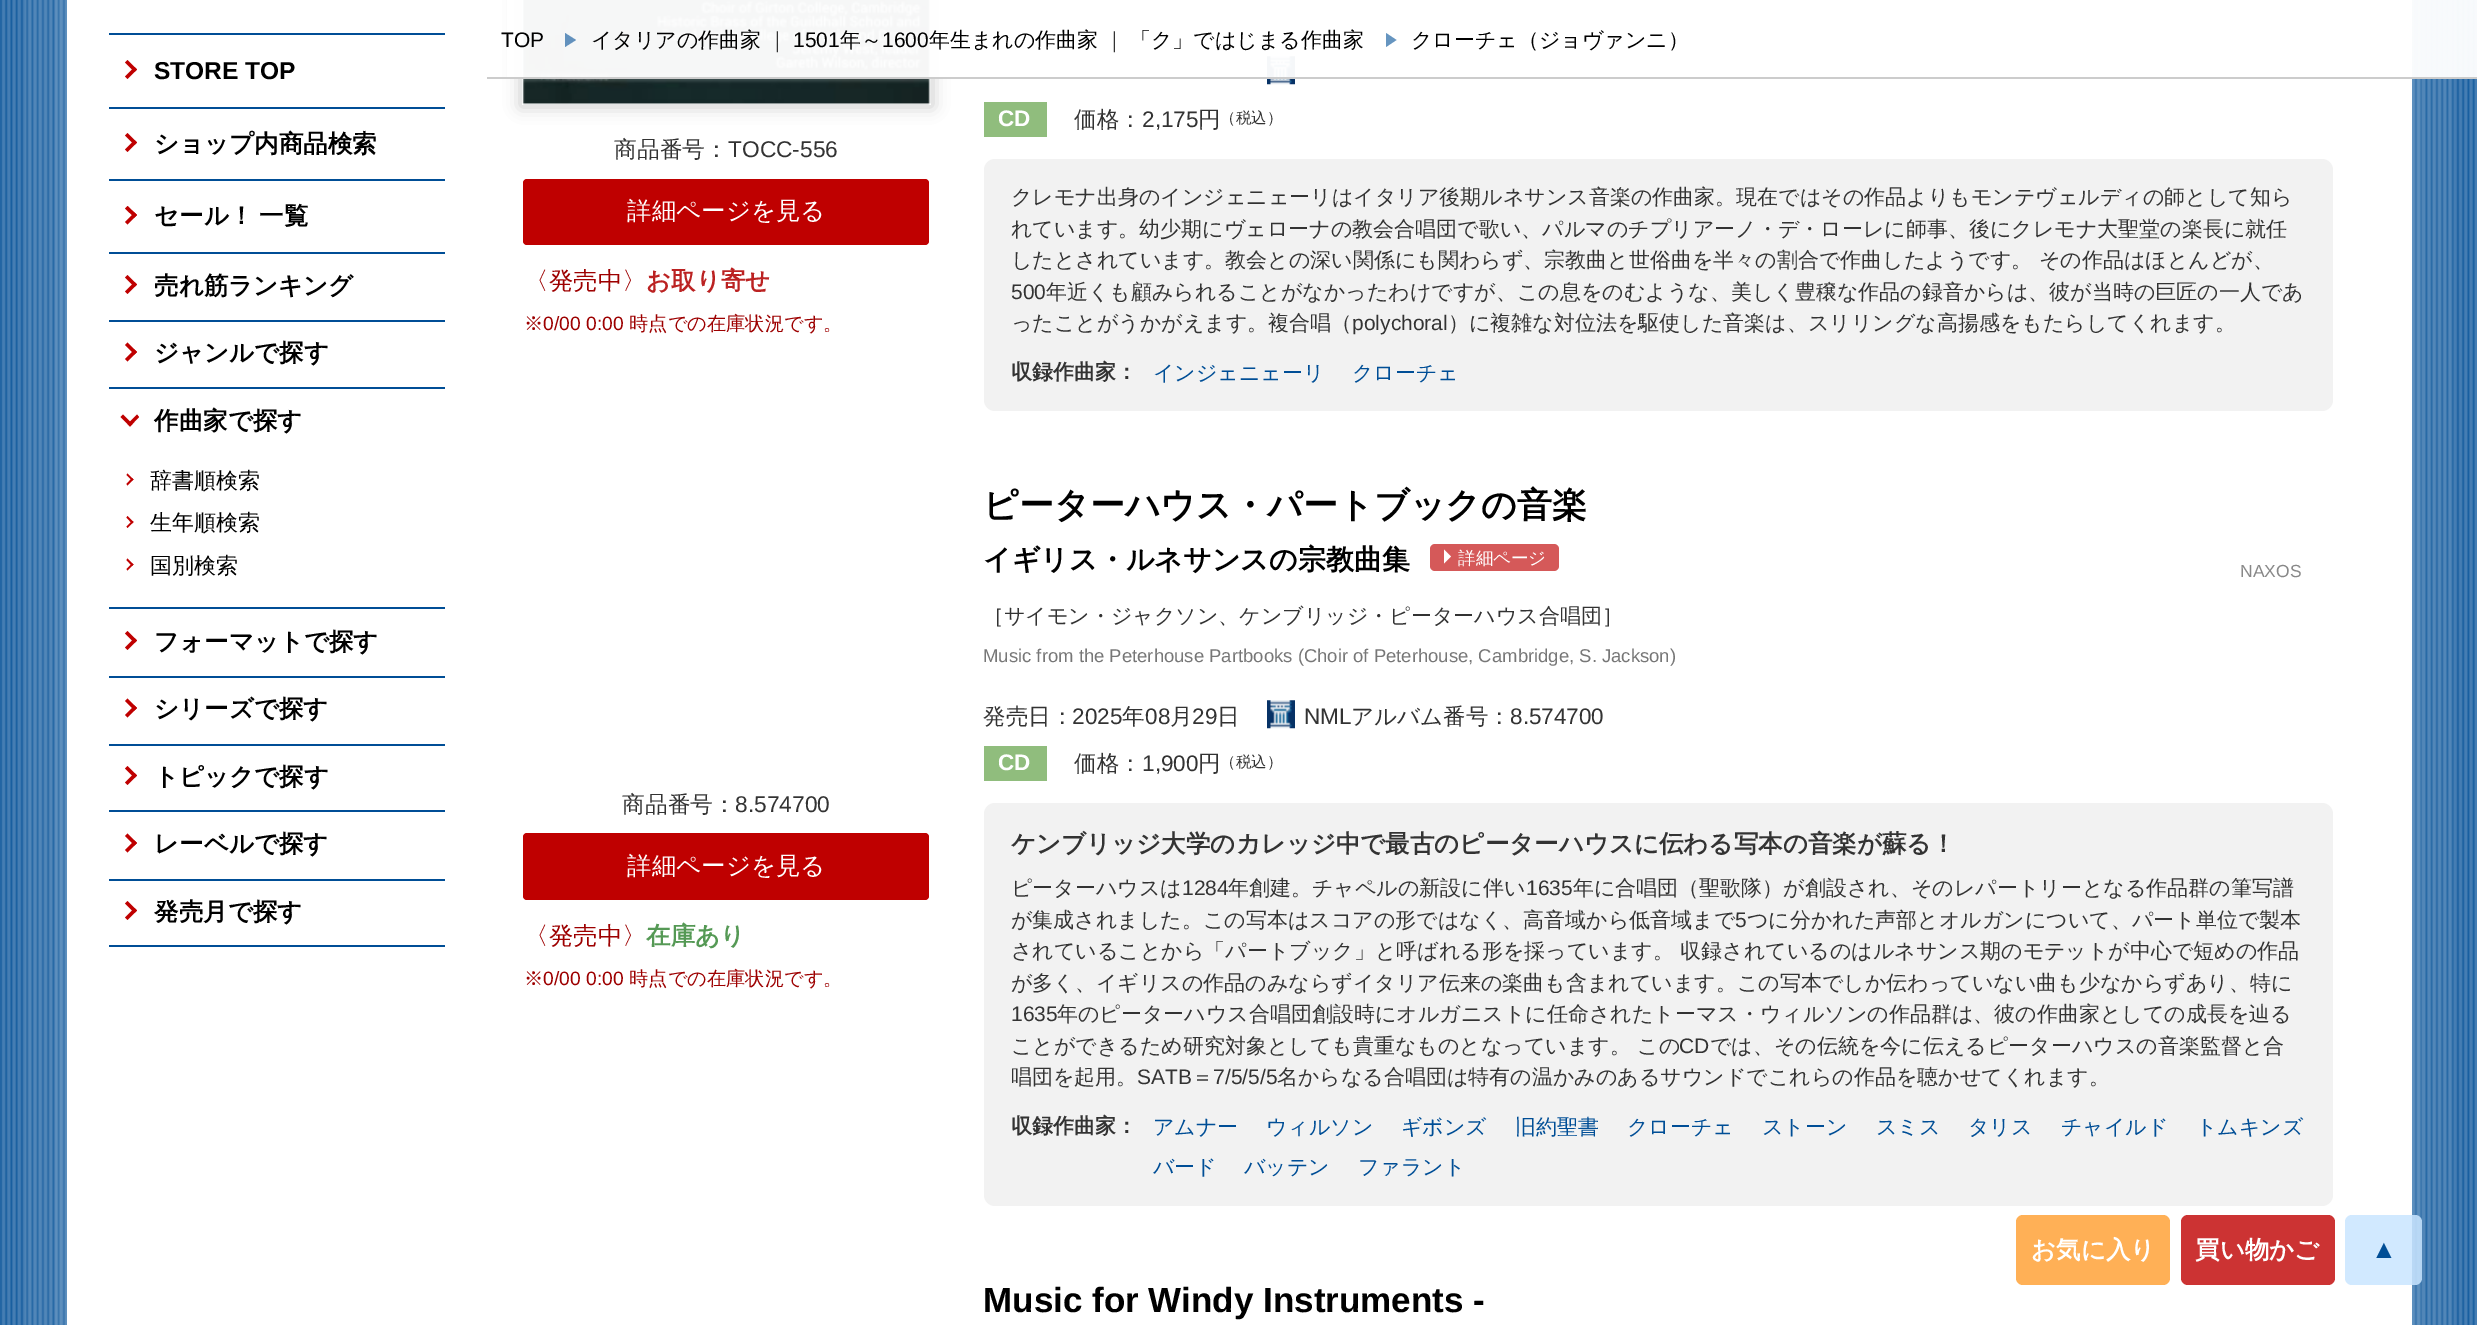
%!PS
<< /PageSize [2477 1325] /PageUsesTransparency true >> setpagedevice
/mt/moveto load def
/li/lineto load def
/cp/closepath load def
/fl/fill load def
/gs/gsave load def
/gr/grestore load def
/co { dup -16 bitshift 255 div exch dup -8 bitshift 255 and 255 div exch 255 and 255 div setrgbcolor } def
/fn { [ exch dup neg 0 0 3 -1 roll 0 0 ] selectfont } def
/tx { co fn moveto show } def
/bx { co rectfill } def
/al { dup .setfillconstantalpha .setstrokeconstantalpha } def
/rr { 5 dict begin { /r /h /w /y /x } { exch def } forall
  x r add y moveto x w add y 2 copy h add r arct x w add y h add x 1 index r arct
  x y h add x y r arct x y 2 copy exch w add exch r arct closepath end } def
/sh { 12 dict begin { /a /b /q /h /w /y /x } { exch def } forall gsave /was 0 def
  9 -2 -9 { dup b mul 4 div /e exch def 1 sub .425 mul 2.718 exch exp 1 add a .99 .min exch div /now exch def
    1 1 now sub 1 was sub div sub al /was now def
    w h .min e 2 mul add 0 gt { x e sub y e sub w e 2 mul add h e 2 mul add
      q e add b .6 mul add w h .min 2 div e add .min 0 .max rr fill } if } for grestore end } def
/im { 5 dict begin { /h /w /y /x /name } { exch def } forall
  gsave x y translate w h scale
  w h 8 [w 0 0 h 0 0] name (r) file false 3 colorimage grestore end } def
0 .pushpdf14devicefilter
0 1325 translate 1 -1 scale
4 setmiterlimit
0 0 2477 1325 16#FFFFFF bx
(media/1.raw) 0 0 2477 1325 im
40 -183 2398 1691 0 61 .3 sh
67 0 2345 1325 16#FFFFFF bx
109 945 336 2 16#004E96 bx
109 33 336 2 16#004E96 bx
16#BF0000 co
127.5 60 mt 137 69.5 li 134.5 72 li 125 62.5 li cp fl
134.5 67 mt 137 69.5 li 127.5 79 li 125 76.5 li cp fl
109 107 336 2 16#004E96 bx
16#BF0000 co
127.5 133 mt 137 142.5 li 134.5 145 li 125 135.5 li cp fl
134.5 140 mt 137 142.5 li 127.5 152 li 125 149.5 li cp fl
109 179 336 2 16#004E96 bx
16#BF0000 co
127.5 206 mt 137 215 li 134.5 217.5 li 125 208.5 li cp fl
134.5 212.5 mt 137 215 li 127.5 224.5 li 125 222 li cp fl
109 252 336 2 16#004E96 bx
16#BF0000 co
127.5 275 mt 137 284.5 li 134.5 287 li 125 277.5 li cp fl
134.5 282 mt 137 284.5 li 127.5 294 li 125 291.5 li cp fl
109 320 336 2 16#004E96 bx
16#BF0000 co
127.5 342.5 mt 137 352 li 134.5 354.5 li 125 345 li cp fl
134.5 349.5 mt 137 352 li 127.5 361.5 li 125 359 li cp fl
109 387 336 2 16#004E96 bx
16#BF0000 co
139 417 mt 130 426.5 li 127.5 424 li 137 414.5 li cp fl
132.5 424 mt 130 426.5 li 120.5 417 li 123 414.5 li cp fl
127.5 473.5 mt 133.5 479.5 li 132 480.5 li 126.5 475 li cp fl
132 478 mt 133.5 479.5 li 127.5 485.5 li 126.5 484 li cp 127.5 516 mt 133.5 522 li 132 523.5 li 126.5 517.5 li cp fl
132 521 mt 133.5 522 li 127.5 528 li 126.5 526.5 li cp 127.5 558.5 mt 133.5 564.5 li 132 566 li 126.5 560 li cp fl
132 563.5 mt 133.5 564.5 li 127.5 570.5 li 126.5 569 li cp fl
109 607 336 2 16#004E96 bx
16#BF0000 co
127.5 631 mt 137 640.5 li 134.5 643 li 125 633.5 li cp fl
134.5 638 mt 137 640.5 li 127.5 650 li 125 647.5 li cp fl
109 676 336 2 16#004E96 bx
16#BF0000 co
127.5 698.5 mt 137 708 li 134.5 710.5 li 125 701 li cp fl
134.5 705.5 mt 137 708 li 127.5 717.5 li 125 715 li cp fl
109 744 336 2 16#004E96 bx
16#BF0000 co
127.5 766 mt 137 775.5 li 134.5 778 li 125 768.5 li cp fl
134.5 773 mt 137 775.5 li 127.5 785 li 125 782.5 li cp fl
109 810 336 2 16#004E96 bx
16#BF0000 co
127.5 833.5 mt 137 843 li 134.5 845.5 li 125 836 li cp fl
134.5 840.5 mt 137 843 li 127.5 852.5 li 125 850 li cp fl
109 879 336 2 16#004E96 bx
16#BF0000 co
127.5 901 mt 137 910.5 li 134.5 913 li 125 903.5 li cp fl
134.5 908 mt 137 910.5 li 127.5 920 li 125 917.5 li cp fl
gs
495 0 mt 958 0 li 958 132 li 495 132 li cp 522 -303 mt 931 -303 li 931 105 li 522 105 li cp eoclip newpath
16#000000 co
520 -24 413 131 0 8 .2 sh
gr
(media/2.raw) 522 0 409 105 im
(media/3.raw) 1267 56 28 29 im
0.96 al
507 0 1970 77 16#FFFFFF bx
1 al
487 77 1990 2 16#CCCCCC bx
16#6291BD co
565 47 mt 565 33 li 576 40 li cp fl
16#6695C0 co
1386 47 mt 1386 33 li 1396.5 40 li cp fl
16#BF0000 co
523 179 406 66 4 rr fl
984 102 63 35 16#90BD7D bx
16#F2F2F2 co
984 159 1349 252 11 rr fl
16#D55959 co
1430 544 129 27 5 rr fl
16#FFFFFF co
1444 563.5 mt 1444 549.5 li 1451 556.5 li cp fl
(media/3.raw) 1267 700 28 29 im
984 746 63 35 16#90BD7D bx
16#F2F2F2 co
984 803 1349 403 11 rr fl
16#BF0000 co
523 833 406 67 4 rr fl
16#FFB056 co
2016 1215 154 70 7 rr fl
16#CC3333 co
2181 1215 154 70 7 rr fl
0.85 al
16#C9E5FF co
2345 1215 77 70 7 rr fl
1 al
(STORE TOP) 154 79 /LiberationSans-Bold 24.5 16#000000 tx
(ショップ内商品検索) 154 152 /WenQuanYiZenHei-Bold 24.5 16#000000 tx
154 224 mt -1 0 32 (セール！ 一覧) widthshow
(売れ筋ランキング) 154 294 /WenQuanYiZenHei-Bold 24.5 16#000000 tx
(ジャンルで探す) 154 361 /WenQuanYiZenHei-Bold 24.5 16#000000 tx
(作曲家で探す) 154 429 /WenQuanYiZenHei-Bold 24.5 16#000000 tx
(辞書順検索) 150 488 /WenQuanYiZenHei-Medium 22 16#000000 tx
(生年順検索) 150 530 /WenQuanYiZenHei-Medium 22 16#000000 tx
(国別検索) 150 573 /WenQuanYiZenHei-Medium 22 16#000000 tx
(フォーマットで探す) 154 650 /WenQuanYiZenHei-Bold 24.5 16#000000 tx
(シリーズで探す) 154 717 /WenQuanYiZenHei-Bold 24.5 16#000000 tx
(トピックで探す) 154 785 /WenQuanYiZenHei-Bold 24.5 16#000000 tx
(レーベルで探す) 154 852 /WenQuanYiZenHei-Bold 24.5 16#000000 tx
(発売月で探す) 154 920 /WenQuanYiZenHei-Bold 24.5 16#000000 tx
(TOP) 501 47 /LiberationSans-Regular 21 16#000000 tx
(イタリアの作曲家) 591 47 /WenQuanYiZenHei-Medium 21 16#000000 tx
(｜) 767 47 /WenQuanYiZenHei-Medium 21 16#333333 tx
(1501) 793 47 /LiberationSans-Regular 21 16#000000 tx
(年～) 840 47 /WenQuanYiZenHei-Medium 21 16#000000 tx
(1600) 882 47 /LiberationSans-Regular 21 16#000000 tx
(年生まれの作曲家) 929 47 /WenQuanYiZenHei-Medium 21 16#000000 tx
(｜) 1104 47 /WenQuanYiZenHei-Medium 21 16#333333 tx
(「ク」ではじまる作曲家) 1130 47 /WenQuanYiZenHei-Medium 21 16#000000 tx
(クローチェ（ジョヴァンニ）) 1411 47 /WenQuanYiZenHei-Medium 21 16#000000 tx
(商品番号：) 614 157 /WenQuanYiZenHei-Medium 22.75 16#333333 tx
(TOCC-556) 728 157 /LiberationSans-Regular 22.75 16#333333 tx
(詳細ページを見る) 627 219 /WenQuanYiZenHei-Medium 24.5 16#FFFFFF tx
(〈発売中〉) 524 289 /WenQuanYiZenHei-Medium 24.5 16#9D0000 tx
(お取り寄せ) 646 289 /WenQuanYiZenHei-Bold 24.5 16#BB2222 tx
(※) 524 330 /WenQuanYiZenHei-Medium 19.25 16#9D0000 tx
(0/00 0:00) 543 330 /LiberationSans-Regular 19.25 16#9D0000 tx
(時点での在庫状況です。) 629 330 /WenQuanYiZenHei-Medium 19.25 16#9D0000 tx
(CD) 998 126 /LiberationSans-Bold 22.5 16#FFFFFF tx
(価格：) 1074 127 /WenQuanYiZenHei-Medium 22.5 16#333333 tx
(2,175) 1142 127 /LiberationSans-Regular 22.5 16#333333 tx
(円) 1198 127 /WenQuanYiZenHei-Medium 22.5 16#333333 tx
(（税込）) 1220 123 /WenQuanYiZenHei-Medium 15.5 16#333333 tx
(クレモナ出身のインジェニェーリはイタリア後期ルネサンス音楽の作曲家。現在ではその作品よりもモンテヴェルディの師として知ら) 1011 204 /WenQuanYiZenHei-Medium 21 16#333333 tx
(れています。幼少期にヴェローナの教会合唱団で歌い、パルマのチプリアーノ・デ・ローレに師事、後にクレモナ大聖堂の楽長に就任) 1011 236 /WenQuanYiZenHei-Medium 21 16#333333 tx
(したとされています。教会との深い関係にも関わらず、宗教曲と世俗曲を半々の割合で作曲したようです。 その作品はほとんどが、) 1011 267 /WenQuanYiZenHei-Medium 21 16#333333 tx
(500) 1011 299 /LiberationSans-Regular 21 16#333333 tx
(年近くも顧みられることがなかったわけですが、この息をのむような、美しく豊穣な作品の録音からは、彼が当時の巨匠の一人であ) 1046 299 /WenQuanYiZenHei-Medium 21 16#333333 tx
(ったことがうかがえます。複合唱（) 1011 330 /WenQuanYiZenHei-Medium 21 16#333333 tx
(polychoral) 1352 330 /LiberationSans-Regular 21 16#333333 tx
(）に複雑な対位法を駆使した音楽は、スリリングな高揚感をもたらしてくれます。) 1448 330 /WenQuanYiZenHei-Medium 21 16#333333 tx
(収録作曲家：) 1011 379 /WenQuanYiZenHei-Bold 21 16#333333 tx
(インジェニェーリ) 1153 380 /WenQuanYiZenHei-Medium 21 16#004E96 tx
(クローチェ) 1352 380 /WenQuanYiZenHei-Medium 21 16#004E96 tx
(ピーターハウス・パートブックの音楽) 983 517 /WenQuanYiZenHei-Bold 35 16#000000 tx
(イギリス・ルネサンスの宗教曲集) 983 569 /WenQuanYiZenHei-Bold 28 16#000000 tx
(詳細ページ) 1458 564 /WenQuanYiZenHei-Medium 17.5 16#FFFFFF tx
(［サイモン・ジャクソン、ケンブリッジ・ピーターハウス合唱団］) 983 623 /WenQuanYiZenHei-Medium 21 16#333333 tx
(Music from the Peterhouse Partbooks \(Choir of Peterhouse, Cambridge, S. Jackson\)) 983 662 /LiberationSans-Regular 18.5 16#777777 tx
(発売日：) 983 724 /WenQuanYiZenHei-Medium 22.5 16#333333 tx
(2025) 1072 724 /LiberationSans-Regular 22.5 16#333333 tx
(年) 1122 724 /WenQuanYiZenHei-Medium 22.5 16#333333 tx
(08) 1145 724 /LiberationSans-Regular 22.5 16#333333 tx
(月) 1170 724 /WenQuanYiZenHei-Medium 22.5 16#333333 tx
(29) 1192 724 /LiberationSans-Regular 22.5 16#333333 tx
(日) 1217 724 /WenQuanYiZenHei-Medium 22.5 16#333333 tx
(NML) 1304 724 /LiberationSans-Regular 22.5 16#333333 tx
(アルバム番号：) 1351 724 /WenQuanYiZenHei-Medium 22.5 16#333333 tx
(8.574700) 1510 724 /LiberationSans-Regular 22.5 16#333333 tx
(CD) 998 770 /LiberationSans-Bold 22.5 16#FFFFFF tx
(価格：) 1074 771 /WenQuanYiZenHei-Medium 22.5 16#333333 tx
(1,900) 1142 771 /LiberationSans-Regular 22.5 16#333333 tx
(円) 1198 771 /WenQuanYiZenHei-Medium 22.5 16#333333 tx
(（税込）) 1220 767 /WenQuanYiZenHei-Medium 15.5 16#333333 tx
(ケンブリッジ大学のカレッジ中で最古のピーターハウスに伝わる写本の音楽が蘇る！) 1011 852 /WenQuanYiZenHei-Bold 24.5 16#333333 tx
(ピーターハウスは) 1011 895 /WenQuanYiZenHei-Medium 21 16#333333 tx
(1284) 1182 895 /LiberationSans-Regular 21 16#333333 tx
(年創建。チャペルの新設に伴い) 1228 895 /WenQuanYiZenHei-Medium 21 16#333333 tx
(1635) 1526 895 /LiberationSans-Regular 21 16#333333 tx
(年に合唱団（聖歌隊）が創設され、そのレパートリーとなる作品群の筆写譜) 1573 895 /WenQuanYiZenHei-Medium 21 16#333333 tx
(が集成されました。この写本はスコアの形ではなく、高音域から低音域まで) 1011 927 /WenQuanYiZenHei-Medium 21 16#333333 tx
(5) 1735 927 /LiberationSans-Regular 21 16#333333 tx
(つに分かれた声部とオルガンについて、パート単位で製本) 1747 927 /WenQuanYiZenHei-Medium 21 16#333333 tx
(されていることから「パートブック」と呼ばれる形を採っています。 収録されているのはルネサンス期のモテットが中心で短めの作品) 1011 958 /WenQuanYiZenHei-Medium 21 16#333333 tx
(が多く、イギリスの作品のみならずイタリア伝来の楽曲も含まれています。この写本でしか伝わっていない曲も少なからずあり、特に) 1011 990 /WenQuanYiZenHei-Medium 21 16#333333 tx
(1635) 1011 1021 /LiberationSans-Regular 21 16#333333 tx
(年のピーターハウス合唱団創設時にオルガニストに任命されたトーマス・ウィルソンの作品群は、彼の作曲家としての成長を辿る) 1057 1021 /WenQuanYiZenHei-Medium 21 16#333333 tx
(ことができるため研究対象としても貴重なものとなっています。 この) 1011 1053 /WenQuanYiZenHei-Medium 21 16#333333 tx
(CD) 1679 1053 /LiberationSans-Regular 21 16#333333 tx
(では、その伝統を今に伝えるピーターハウスの音楽監督と合) 1710 1053 /WenQuanYiZenHei-Medium 21 16#333333 tx
(唱団を起用。) 1011 1084 /WenQuanYiZenHei-Medium 21 16#333333 tx
(SATB) 1137 1084 /LiberationSans-Regular 21 16#333333 tx
(＝) 1192 1084 /WenQuanYiZenHei-Medium 21 16#333333 tx
(7/5/5/5) 1213 1084 /LiberationSans-Regular 21 16#333333 tx
(名からなる合唱団は特有の温かみのあるサウンドでこれらの作品を聴かせてくれます。) 1277 1084 /WenQuanYiZenHei-Medium 21 16#333333 tx
(収録作曲家：) 1011 1133 /WenQuanYiZenHei-Bold 21 16#333333 tx
(アムナー) 1153 1134 /WenQuanYiZenHei-Medium 21 16#004E96 tx
(ウィルソン) 1266 1134 /WenQuanYiZenHei-Medium 21 16#004E96 tx
(ギボンズ) 1401 1134 /WenQuanYiZenHei-Medium 21 16#004E96 tx
(旧約聖書) 1515 1134 /WenQuanYiZenHei-Medium 21 16#004E96 tx
(クローチェ) 1627 1134 /WenQuanYiZenHei-Medium 21 16#004E96 tx
(ストーン) 1762 1134 /WenQuanYiZenHei-Medium 21 16#004E96 tx
(スミス) 1876 1134 /WenQuanYiZenHei-Medium 21 16#004E96 tx
(タリス) 1968 1134 /WenQuanYiZenHei-Medium 21 16#004E96 tx
(チャイルド) 2061 1134 /WenQuanYiZenHei-Medium 21 16#004E96 tx
(トムキンズ) 2196 1134 /WenQuanYiZenHei-Medium 21 16#004E96 tx
(バード) 1153 1174 /WenQuanYiZenHei-Medium 21 16#004E96 tx
(バッテン) 1244 1174 /WenQuanYiZenHei-Medium 21 16#004E96 tx
(ファラント) 1358 1174 /WenQuanYiZenHei-Medium 21 16#004E96 tx
(NAXOS) 2240 577 /LiberationSans-Regular 17.5 16#888888 tx
(商品番号：) 622 812 /WenQuanYiZenHei-Medium 22.75 16#333333 tx
(8.574700) 735 812 /LiberationSans-Regular 22.75 16#333333 tx
(詳細ページを見る) 627 874 /WenQuanYiZenHei-Medium 24.5 16#FFFFFF tx
(〈発売中〉) 524 944 /WenQuanYiZenHei-Medium 24.5 16#9D0000 tx
(在庫あり) 646 944 /WenQuanYiZenHei-Bold 24.5 16#559955 tx
(※) 524 985 /WenQuanYiZenHei-Medium 19.25 16#9D0000 tx
(0/00 0:00) 543 985 /LiberationSans-Regular 19.25 16#9D0000 tx
(時点での在庫状況です。) 629 985 /WenQuanYiZenHei-Medium 19.25 16#9D0000 tx
(Music for Windy Instruments -) 983 1312 /LiberationSans-Bold 35 16#000000 tx
(お気に入り) 2031 1258 /WenQuanYiZenHei-Bold 24.5 16#FFFFFF tx
(買い物かご) 2195 1258 /WenQuanYiZenHei-Bold 24.5 16#FFFFFF tx
(▲) 2371 1258 /LiberationSans-Bold 26 16#004E96 tx
.poppdf14devicefilter showpage
